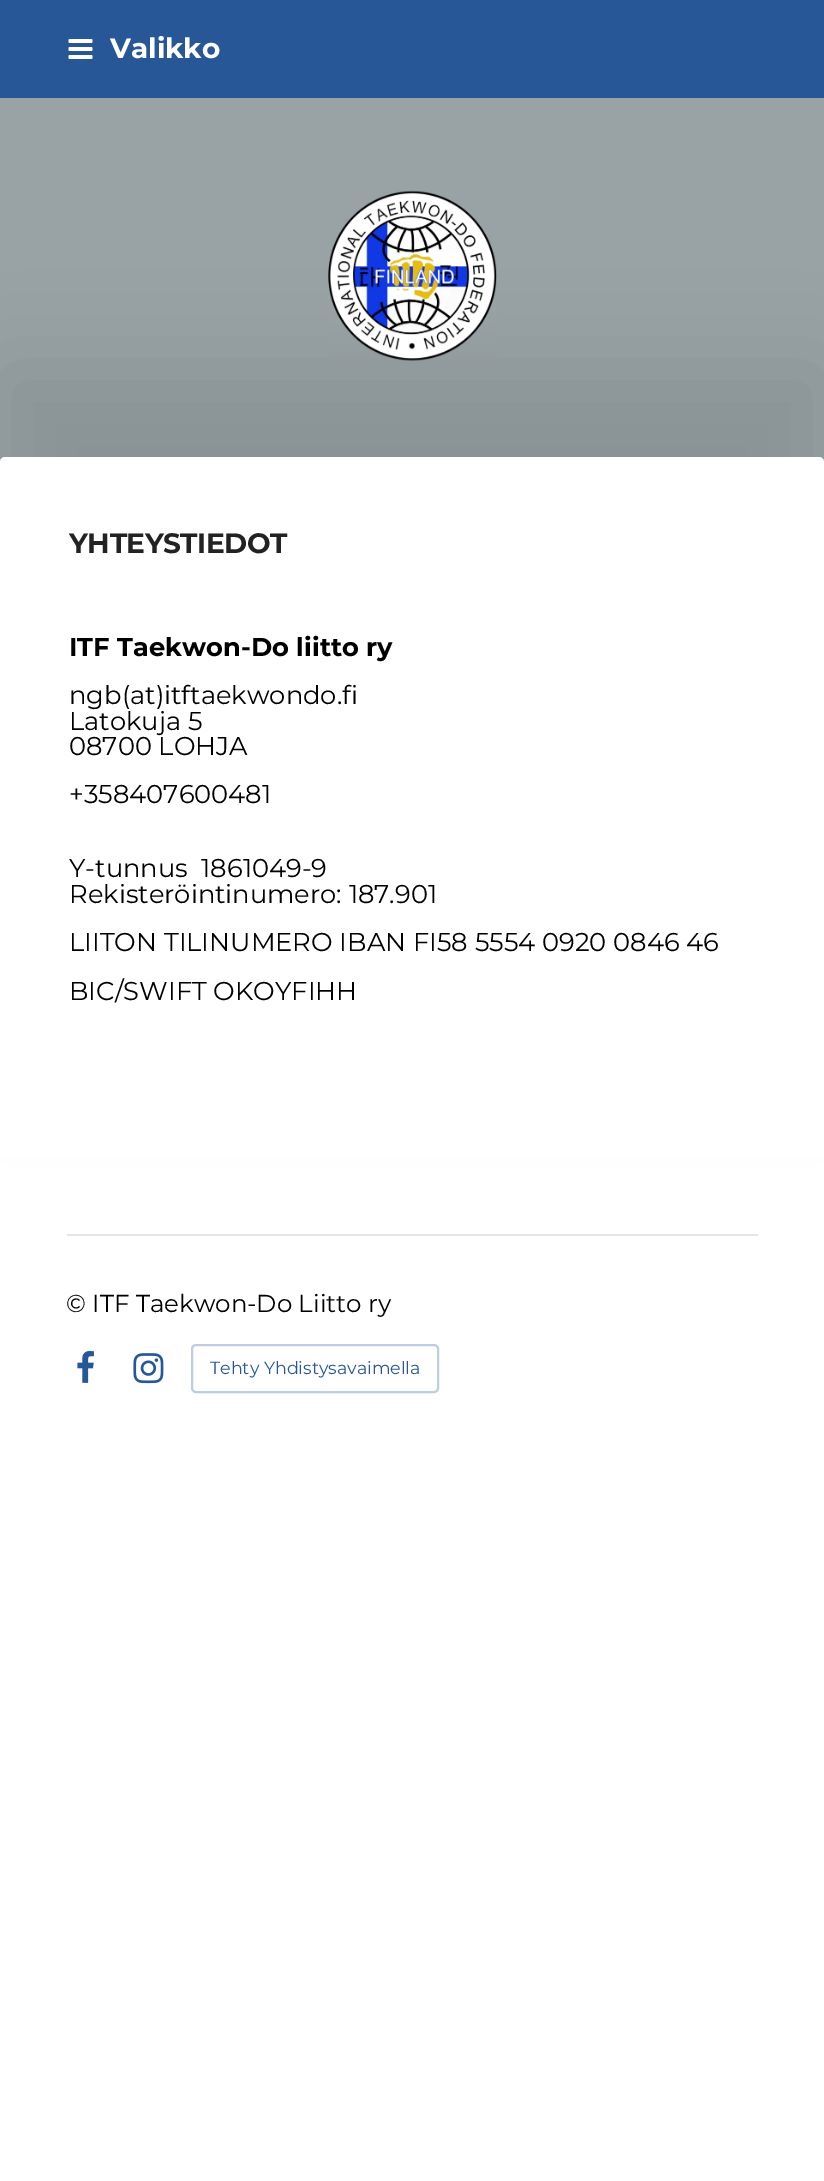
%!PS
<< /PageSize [824 2181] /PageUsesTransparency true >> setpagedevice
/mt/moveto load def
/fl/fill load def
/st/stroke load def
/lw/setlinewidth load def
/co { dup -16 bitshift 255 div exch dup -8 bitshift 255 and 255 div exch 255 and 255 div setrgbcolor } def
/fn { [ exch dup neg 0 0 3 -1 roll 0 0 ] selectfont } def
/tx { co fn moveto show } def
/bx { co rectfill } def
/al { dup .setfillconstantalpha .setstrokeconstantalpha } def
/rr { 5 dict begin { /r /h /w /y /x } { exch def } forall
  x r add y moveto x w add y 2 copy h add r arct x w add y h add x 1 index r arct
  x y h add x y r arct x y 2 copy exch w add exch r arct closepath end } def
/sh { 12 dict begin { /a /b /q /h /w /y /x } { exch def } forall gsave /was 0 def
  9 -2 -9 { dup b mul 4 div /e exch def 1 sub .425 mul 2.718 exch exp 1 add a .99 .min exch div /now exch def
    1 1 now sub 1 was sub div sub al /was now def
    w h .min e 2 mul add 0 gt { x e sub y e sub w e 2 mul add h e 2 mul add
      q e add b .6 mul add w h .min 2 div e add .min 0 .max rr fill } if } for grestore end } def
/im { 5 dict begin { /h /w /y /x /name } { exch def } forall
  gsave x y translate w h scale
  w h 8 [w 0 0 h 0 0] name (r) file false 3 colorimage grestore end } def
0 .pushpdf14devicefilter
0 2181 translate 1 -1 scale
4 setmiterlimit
0 0 824 2181 16#FFFFFF bx
0 0 824 98 16#285797 bx
(media/1.raw) 68 39 25 20 im
0 98 824 364 16#99A2A5 bx
16#000000 co
0 369 824 700 5 44 .1 sh
(media/2.raw) 328 190 169 171 im
16#FFFFFF co
0 457 824 700 5 rr fl
67 1234 691 2 16#E6E6E6 bx
(media/3.raw) 77 1351 17 32 im
(media/4.raw) 133 1353 31 31 im
16#BFCDE0 co
2 lw
192 1345 246 47 4 rr st
(Valikko) 110 58 /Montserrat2-Thin 28 16#FFFFFF tx
16#222222 co
69 553 mt -.5 0 (YHTEYSTIEDOT) ashow
(ITF Taekwon-Do liitto ry) 69 656 /Montserrat2-Thin 25.75 16#000000 tx
(ngb\(at\)itftaekwondo.fi) 69 704 /Montserrat-Thin 25.75 16#000000 tx
(Latokuja 5) 69 730 /Montserrat-Thin 25.75 16#000000 tx
(08700 LOHJA) 69 755 /Montserrat-Thin 25.75 16#000000 tx
(+358407600481) 69 803 /Montserrat-Thin 25.75 16#000000 tx
(Y-tunnus  1861049-9) 69 877 /Montserrat-Thin 25.75 16#000000 tx
(Rekisteröintinumero: 187.901) 69 903 /Montserrat-Thin 25.75 16#000000 tx
(LIITON TILINUMERO IBAN FI58 5554 0920 0846 46) 69 951 /Montserrat-Thin 25.75 16#000000 tx
(BIC/SWIFT OKOYFIHH) 69 1000 /Montserrat-Thin 25.75 16#000000 tx
(© ITF Taekwon-Do Liitto ry) 66 1312 /Montserrat-Thin 24.5 16#000000 tx
(Tehty Yhdistysavaimella) 210 1374 /Montserrat-Thin 17.5 16#285797 tx
.poppdf14devicefilter showpage
